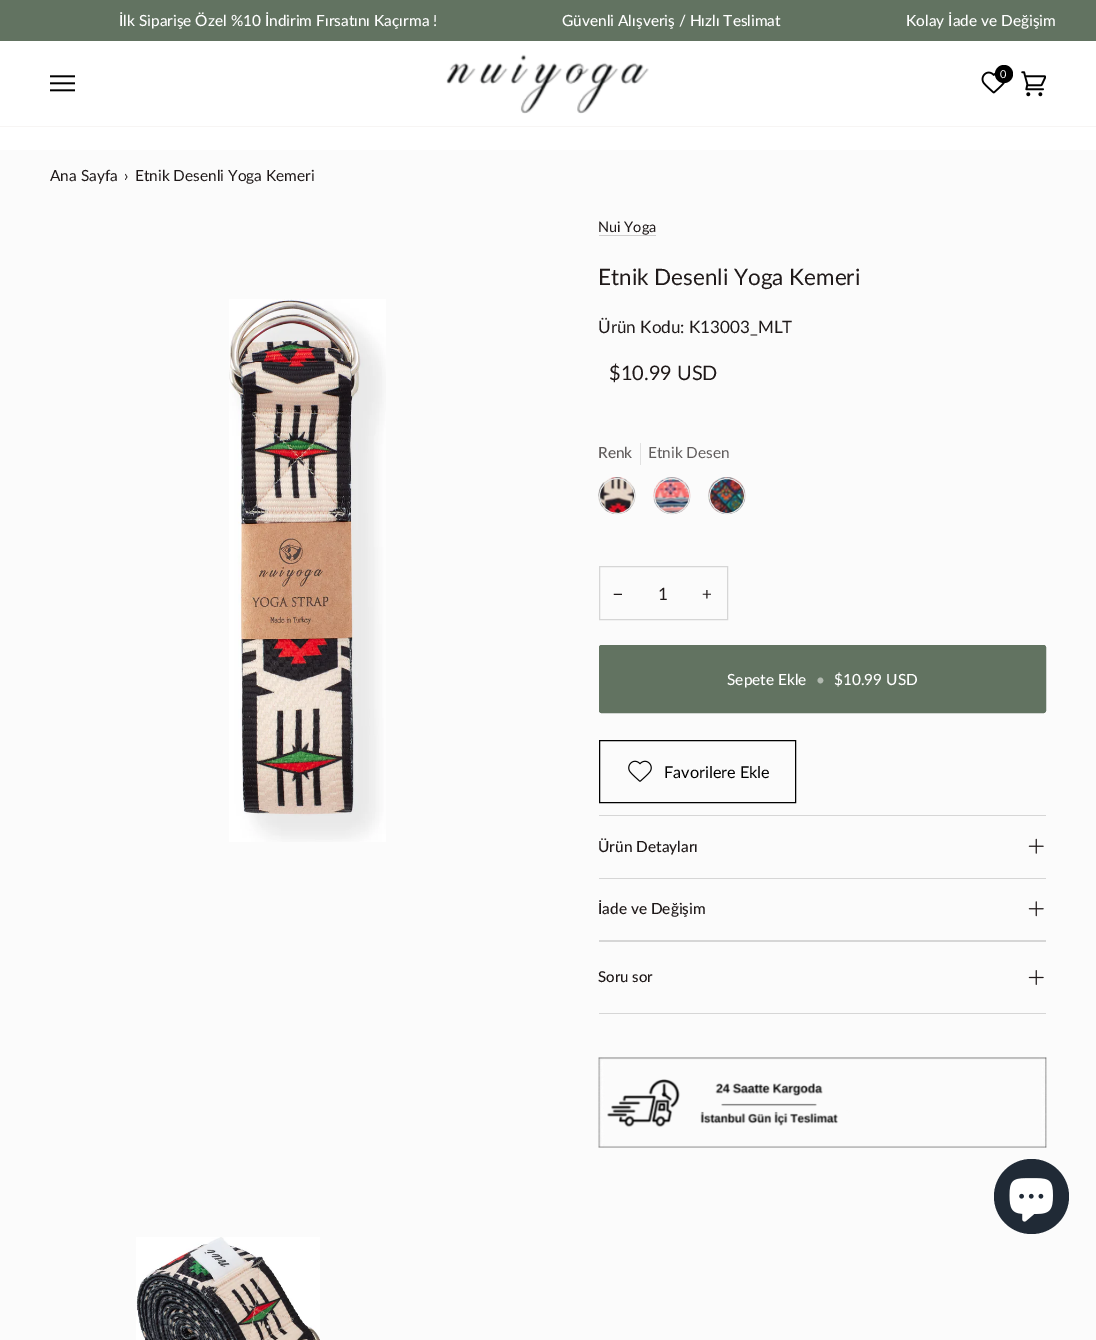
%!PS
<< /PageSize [1096 1340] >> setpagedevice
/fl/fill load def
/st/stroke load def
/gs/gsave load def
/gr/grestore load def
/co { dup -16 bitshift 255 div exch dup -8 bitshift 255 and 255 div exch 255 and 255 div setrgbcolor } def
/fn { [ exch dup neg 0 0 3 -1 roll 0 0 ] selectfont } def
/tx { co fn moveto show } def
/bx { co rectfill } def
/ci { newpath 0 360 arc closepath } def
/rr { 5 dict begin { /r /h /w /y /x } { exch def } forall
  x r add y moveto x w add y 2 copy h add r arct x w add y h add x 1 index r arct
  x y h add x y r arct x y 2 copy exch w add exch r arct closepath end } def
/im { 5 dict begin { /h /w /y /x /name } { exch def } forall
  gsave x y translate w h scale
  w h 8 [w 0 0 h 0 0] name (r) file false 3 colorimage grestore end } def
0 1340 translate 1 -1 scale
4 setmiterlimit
0 0 1096 1340 16#FFFFFF bx
0 0 1096 41 16#627361 bx
0 126 1096 1 16#F7F5F4 bx
(media/1.raw) 446 54 203 60 im
(media/2.raw) 981 71 25 23 im
16#000000 co
1004 74 9 ci fl
(media/3.raw) 1021 71 25 26 im
(media/4.raw) 50 75 25 17 im
0 150 1096 1190 16#FBFBFB bx
(media/5.raw) 229 299 157 543 im
(media/6.raw) 136 1237 184 103 im
599 235 57 1 16#CFCECE bx
640 443 1 22 16#E1E1E1 bx
(media/7.raw) 598 477 38 37 im
16#E5E5E5 co
617 496 17.5 ci st
(media/8.raw) 653 477 38 37 im
672 496 17.5 ci st
(media/9.raw) 708 477 38 37 im
727 496 17.5 ci st
16#D6D6D6 co
599.5 566.5 128 53 rectstroke
16#627361 co
599.5 645.5 446 67 2 rr gs fl gr
st
16#000000 co
599.5 740.5 196 62 rectstroke
(media/10.raw) 628 760 24 22 im
599 815 447 1 16#D6D6D6 bx
599 878 447 1 16#D6D6D6 bx
(media/11.raw) 1028 838 16 16 im
599 940 447 2 16#D6D6D6 bx
(media/12.raw) 1028 901 16 16 im
599 1013 447 1 16#D6D6D6 bx
(media/13.raw) 1028 970 16 15 im
(media/14.raw) 598 1057 449 91 im
16#202A36 co
1031.5 1196.5 37.5 ci fl
(media/15.raw) 1009 1178 44 44 im
(İlk Siparişe Özel %10 İndirim Fırsatını Kaçırma !) 119 26 /Lato-Medium 15.4 16#FFFFFF tx
(Güvenli Alışveriş / Hızlı Teslimat) 562 26 /Lato-Medium 15.4 16#FFFFFF tx
(Kolay İade ve Değişim) 906 26 /Lato-Medium 15.4 16#FFFFFF tx
(0) 1000 78 /Lato-Regular 11 16#FFFFFF tx
(Ana Sayfa) 50 181 /Lato-Regular 15.4 16#1F1919 tx
(›) 124 181 /Lato-Regular 15.4 16#1F1919 tx
(Etnik Desenli Yoga Kemeri) 135 181 /Lato-Regular 15.4 16#1F1919 tx
(Nui Yoga) 598 232 /Lato-Regular 14.5 16#1F1919 tx
(Etnik Desenli Yoga Kemeri) 598 285 /Lato-Regular 22.5 16#1F1919 tx
(Ürün Kodu: K13003_MLT) 598 333 /Lato-Regular 17.1 16#1F1919 tx
($10.99 USD) 609 380 /Lato-Regular 20 16#1F1919 tx
(Renk) 598 458 /Lato-Medium 15.4 16#615D5D tx
(Etnik Desen) 648 458 /Lato-Regular 15.4 16#615D5D tx
(−) 613 600 /LiberationSans-Regular 17 16#1F1919 tx
(1) 658 600 /Lato-Regular 17.1 16#1F1919 tx
(+) 702 600 /Lato-Regular 17 16#1F1919 tx
(Sepete Ekle) 727 685 /Lato-Medium 15.4 16#FFFFFF tx
(•) 816 685 /Lato-Medium 15.4 16#B1B9B0 tx
($10.99 USD) 834 685 /Lato-Medium 15.4 16#FFFFFF tx
(Favorilere Ekle) 664 778 /Lato-Regular 16.25 16#000000 tx
(Ürün Detayları) 598 852 /Lato-Medium 15.4 16#1F1919 tx
(İade ve Değişim) 598 914 /Lato-Medium 15.4 16#1F1919 tx
(Soru sor) 598 982 /Lato-Medium 15 16#1F1919 tx
showpage
